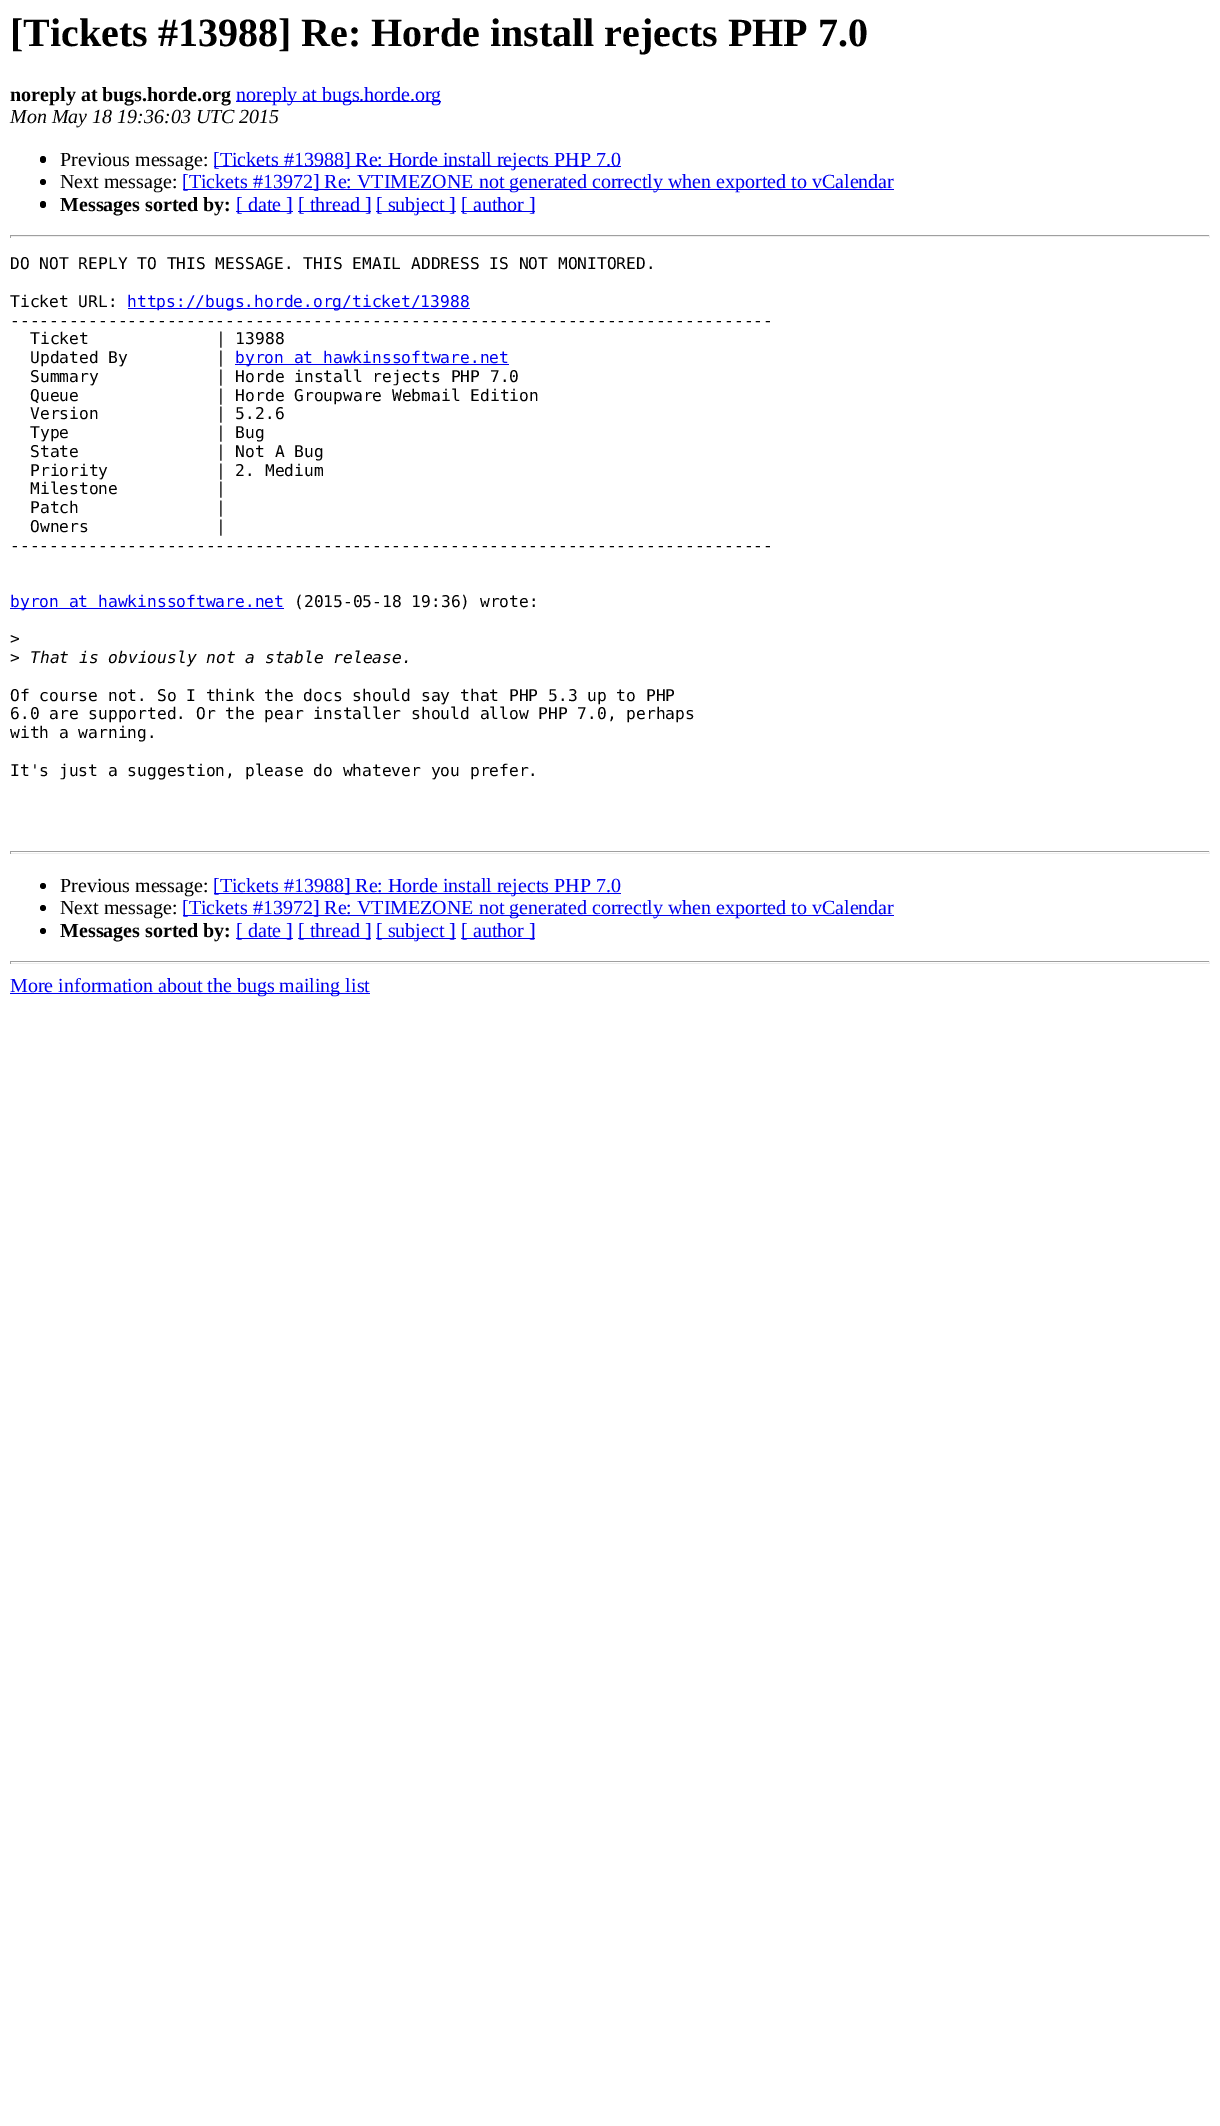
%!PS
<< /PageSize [1220 2126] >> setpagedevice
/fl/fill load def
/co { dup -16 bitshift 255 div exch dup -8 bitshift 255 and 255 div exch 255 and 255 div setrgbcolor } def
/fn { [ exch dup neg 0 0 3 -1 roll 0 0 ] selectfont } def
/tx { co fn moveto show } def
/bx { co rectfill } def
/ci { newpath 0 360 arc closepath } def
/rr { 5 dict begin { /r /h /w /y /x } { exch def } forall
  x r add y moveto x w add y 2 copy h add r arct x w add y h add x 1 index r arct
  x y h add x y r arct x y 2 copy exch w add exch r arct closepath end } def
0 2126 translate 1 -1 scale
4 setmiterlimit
0 0 1220 2126 16#FFFFFF bx
236 101 205 1 16#0000EE bx
16#000000 co
40 156 6 7 3 rr fl
214 166 407 1 16#0000EE bx
16#000000 co
43 182 3 ci fl
183 189 711 1 16#0000EE bx
16#000000 co
40 201 6 7 3 rr fl
236 211 57 1 16#0000EE bx
298 211 73 1 16#0000EE bx
376 211 80 1 16#0000EE bx
461 211 74 1 16#0000EE bx
10 235 1200 1 16#9F9F9F bx
1209 235 1 3 16#EEEEEE bx
10 236 1200 1 16#EEEEEE bx
10 235 1 3 16#9F9F9F bx
128 308 342 1 16#0000EE bx
235 364 274 1 16#0000EE bx
10 608 274 1 16#0000EE bx
10 851 1200 1 16#9F9F9F bx
1209 851 1 3 16#EEEEEE bx
10 853 1200 1 16#EEEEEE bx
10 851 1 3 16#9F9F9F bx
16#000000 co
43 886 3 ci fl
214 893 407 1 16#0000EE bx
16#000000 co
43 908 3 ci fl
183 915 711 1 16#0000EE bx
16#000000 co
43 931 3 ci fl
236 938 57 1 16#0000EE bx
298 938 73 1 16#0000EE bx
376 938 80 1 16#0000EE bx
461 938 74 1 16#0000EE bx
10 961 1200 1 16#9F9F9F bx
1209 961 1 3 16#EEEEEE bx
10 963 1200 1 16#EEEEEE bx
10 961 1 3 16#9F9F9F bx
10 993 360 1 16#0000EE bx
([Tickets #13988] Re: Horde install rejects PHP 7.0) 10 46 /LiberationSerif-Bold 40 16#000000 tx
(noreply at bugs.horde.org) 10 101 /LiberationSerif-Bold 20 16#000000 tx
(noreply at bugs.horde.org) 236 101 /LiberationSerif-Regular 20 16#0000EE tx
(Mon May 18 19:36:03 UTC 2015) 10 123 /LiberationSerif-Italic 20 16#000000 tx
(Previous message:) 60 166 /LiberationSerif-Regular 20 16#000000 tx
([Tickets #13988] Re: Horde install rejects PHP 7.0) 213 166 /LiberationSerif-Regular 20 16#0000EE tx
(Next message:) 60 188 /LiberationSerif-Regular 20 16#000000 tx
([Tickets #13972] Re: VTIMEZONE not generated correctly when exported to vCalendar) 182 188 /LiberationSerif-Regular 20 16#0000EE tx
(Messages sorted by:) 60 211 /LiberationSerif-Bold 20 16#000000 tx
([ date ]) 236 211 /LiberationSerif-Regular 20 16#0000EE tx
([ thread ]) 298 211 /LiberationSerif-Regular 20 16#0000EE tx
([ subject ]) 376 211 /LiberationSerif-Regular 20 16#0000EE tx
([ author ]) 461 211 /LiberationSerif-Regular 20 16#0000EE tx
(DO NOT REPLY TO THIS MESSAGE. THIS EMAIL ADDRESS IS NOT MONITORED.) 10 269 /DejaVuSansMono-Regular 16.25 16#000000 tx
(Ticket URL:) 10 307 /DejaVuSansMono-Regular 16.25 16#000000 tx
(https://bugs.horde.org/ticket/13988) 127 307 /DejaVuSansMono-Regular 16.25 16#0000EE tx
(------------------------------------------------------------------------------) 10 326 /DejaVuSansMono-Regular 16.25 16#000000 tx
(Ticket             | 13988) 30 344 /DejaVuSansMono-Regular 16.25 16#000000 tx
(Updated By         |) 30 363 /DejaVuSansMono-Regular 16.25 16#000000 tx
(byron at hawkinssoftware.net) 235 363 /DejaVuSansMono-Regular 16.25 16#0000EE tx
(Summary            | Horde install rejects PHP 7.0) 30 382 /DejaVuSansMono-Regular 16.25 16#000000 tx
(Queue              | Horde Groupware Webmail Edition) 30 401 /DejaVuSansMono-Regular 16.25 16#000000 tx
(Version            | 5.2.6) 30 419 /DejaVuSansMono-Regular 16.25 16#000000 tx
(Type               | Bug) 30 438 /DejaVuSansMono-Regular 16.25 16#000000 tx
(State              | Not A Bug) 30 457 /DejaVuSansMono-Regular 16.25 16#000000 tx
(Priority           | 2. Medium) 30 476 /DejaVuSansMono-Regular 16.25 16#000000 tx
(Milestone          |) 30 494 /DejaVuSansMono-Regular 16.25 16#000000 tx
(Patch              |) 30 513 /DejaVuSansMono-Regular 16.25 16#000000 tx
(Owners             |) 30 532 /DejaVuSansMono-Regular 16.25 16#000000 tx
(------------------------------------------------------------------------------) 10 551 /DejaVuSansMono-Regular 16.25 16#000000 tx
(byron at hawkinssoftware.net) 10 607 /DejaVuSansMono-Regular 16.25 16#0000EE tx
(\(2015-05-18 19:36\) wrote:) 294 607 /DejaVuSansMono-Regular 16.25 16#000000 tx
(>) 10 644 /DejaVuSansMono-Regular 16.25 16#000000 tx
(>) 10 663 /DejaVuSansMono-Regular 16.25 16#000000 tx
(That is obviously not a stable release.) 30 663 /DejaVuSansMono-Italic 16.25 16#000000 tx
(Of course not. So I think the docs should say that PHP 5.3 up to PHP) 10 701 /DejaVuSansMono-Regular 16.25 16#000000 tx
(6.0 are supported. Or the pear installer should allow PHP 7.0, perhaps) 10 719 /DejaVuSansMono-Regular 16.25 16#000000 tx
(with a warning.) 10 738 /DejaVuSansMono-Regular 16.25 16#000000 tx
(It's just a suggestion, please do whatever you prefer.) 10 776 /DejaVuSansMono-Regular 16.25 16#000000 tx
(Previous message:) 60 892 /LiberationSerif-Regular 20 16#000000 tx
([Tickets #13988] Re: Horde install rejects PHP 7.0) 213 892 /LiberationSerif-Regular 20 16#0000EE tx
(Next message:) 60 914 /LiberationSerif-Regular 20 16#000000 tx
([Tickets #13972] Re: VTIMEZONE not generated correctly when exported to vCalendar) 182 914 /LiberationSerif-Regular 20 16#0000EE tx
(Messages sorted by:) 60 937 /LiberationSerif-Bold 20 16#000000 tx
([ date ]) 236 937 /LiberationSerif-Regular 20 16#0000EE tx
([ thread ]) 298 937 /LiberationSerif-Regular 20 16#0000EE tx
([ subject ]) 376 937 /LiberationSerif-Regular 20 16#0000EE tx
([ author ]) 461 937 /LiberationSerif-Regular 20 16#0000EE tx
(More information about the bugs mailing list) 10 992 /LiberationSerif-Regular 20 16#0000EE tx
showpage
